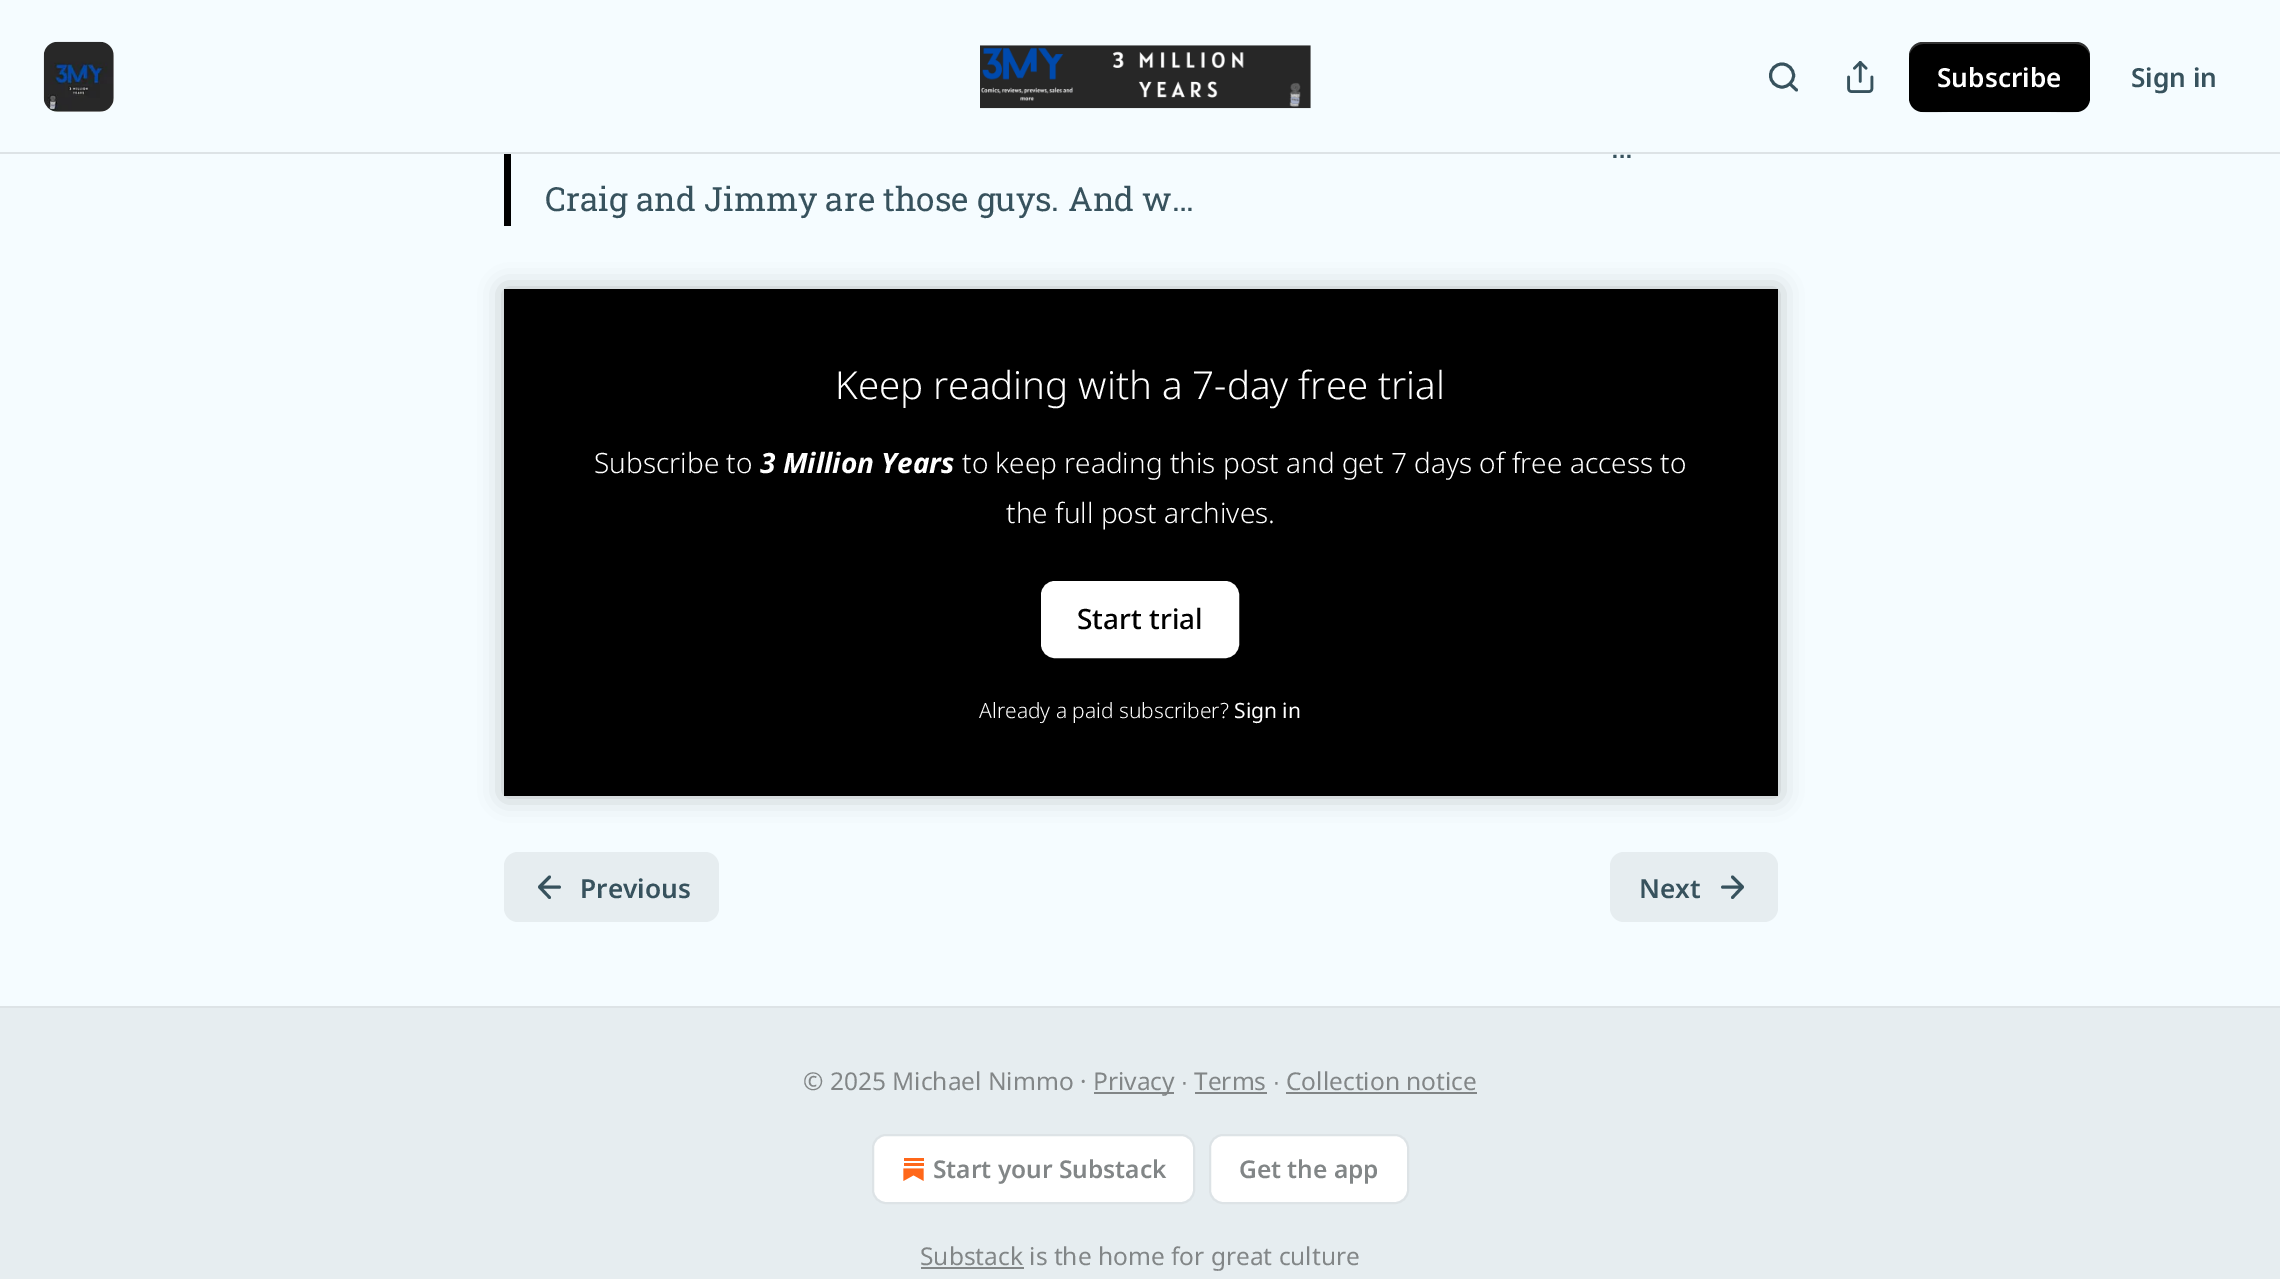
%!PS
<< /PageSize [2280 1279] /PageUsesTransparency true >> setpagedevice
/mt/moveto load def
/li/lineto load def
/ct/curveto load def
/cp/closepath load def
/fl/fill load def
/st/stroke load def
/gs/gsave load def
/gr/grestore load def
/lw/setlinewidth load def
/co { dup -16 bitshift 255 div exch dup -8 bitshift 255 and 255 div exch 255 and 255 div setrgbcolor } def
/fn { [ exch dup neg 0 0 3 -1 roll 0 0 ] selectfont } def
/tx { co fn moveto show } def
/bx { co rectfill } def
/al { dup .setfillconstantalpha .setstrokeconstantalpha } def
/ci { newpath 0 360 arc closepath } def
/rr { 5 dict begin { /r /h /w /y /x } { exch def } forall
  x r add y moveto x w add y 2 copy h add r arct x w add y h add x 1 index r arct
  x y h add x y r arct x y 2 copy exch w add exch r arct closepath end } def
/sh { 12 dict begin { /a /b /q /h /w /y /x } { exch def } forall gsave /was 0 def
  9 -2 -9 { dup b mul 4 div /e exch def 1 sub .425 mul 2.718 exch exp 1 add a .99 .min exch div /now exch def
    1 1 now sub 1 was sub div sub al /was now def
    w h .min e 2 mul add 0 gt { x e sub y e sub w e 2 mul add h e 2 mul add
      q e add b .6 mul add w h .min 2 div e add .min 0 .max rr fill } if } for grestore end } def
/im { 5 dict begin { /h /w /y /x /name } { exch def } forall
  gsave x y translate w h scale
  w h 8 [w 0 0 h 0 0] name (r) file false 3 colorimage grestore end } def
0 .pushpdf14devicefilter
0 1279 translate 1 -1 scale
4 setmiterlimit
0 0 2280 1279 16#F5FCFF bx
0 152 2280 2 16#DDE3E6 bx
16#FFFFFF co
44 42 70 70 14 rr fl
(media/1.raw) 43 41 71 71 im
(media/2.raw) 980 45 331 64 im
16#37525D co
2.9 lw
1782 75.5 11.5 ci st
1 setlinecap
1 setlinejoin
1796.5 90 mt 1790 84 li st
(media/3.raw) 1847 61 27 32 im
16#000000 co
1909 42 181 70 14 rr fl
0.1 al
1909 96 mt 1909 118 1934 112 1948 112 ct 2050 112 li 2065 112 2090 118 2090 96 ct 2090 104 2083 110 2076 110 ct 1923 110 li 1916 110 1909 104 1909 96 ct cp fl
0.2 al
16#FFFFFF co
1923 44 mt 2076 44 li 2083 44 2090 50 2090 58 ct 2090 36 2065 42 2050 42 ct 1948 42 li 1934 42 1909 36 1909 58 ct 1909 50 1916 44 1923 44 ct cp fl
1 al
504 154 7 72 16#000000 bx
504 289 1274 507 16#000000 bx
16#FFFFFF co
1042 582 196 75 13 rr gs fl gr
2 lw
0 setlinecap
0 setlinejoin
st
gs
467 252 mt 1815 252 li 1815 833 li 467 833 li cp 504 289 mt 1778 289 li 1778 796 li 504 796 li cp eoclip newpath
16#000000 co
504 289 1274 507 0 12 .25 sh
gr
16#E6EDF0 co
504 852 215 70 14 rr fl
16#37525D co
2.9 lw
1 setlinecap
1 setlinejoin
549.5 897.5 mt 539.5 887 li 549.5 877 li 559.5 887 mt 539.5 887 li st
16#E6EDF0 co
1610 852 168 70 14 rr fl
16#37525D co
1722.5 887 mt 1742.5 887 li 1732.5 877 mt 1742.5 887 li 1732.5 897.5 li st
0 1008 2280 271 16#E6EDF0 bx
0 1006 2280 2 16#DDE3E6 bx
1094 1092 80 2 16#828687 bx
1195 1092 72 2 16#828687 bx
1286 1092 191 2 16#828687 bx
16#FFFFFF co
873 1135 321 68 13 rr gs fl gr
16#DDE3E6 co
2 lw
0 setlinecap
0 setlinejoin
st
(media/4.raw) 903 1158 21 23 im
16#FFFFFF co
1210 1135 198 68 13 rr gs fl gr
16#DDE3E6 co
st
921 1267 103 2 16#828687 bx
(Subscribe) 1937 87 /NotoSans-SemiBold 26.25 16#FFFFFF tx
(Sign in) 2131 87 /NotoSans-SemiBold 26.25 16#37525D tx
(…) 1611 158 /RobotoSlab-Regular 33.25 16#37525D tx
(Craig and Jimmy are those guys. And w…) 545 211 /RobotoSlab-Regular 33.25 16#37525D tx
(Keep reading with a 7-day free trial) 835 399 /NotoSans-Light 38.5 16#FFFFFF tx
(Subscribe to) 594 473 /NotoSans-Light 28 16#FFFFFF tx
(3 Million Years) 760 473 /NotoSans-BoldItalic 28 16#FFFFFF tx
(to keep reading this post and get 7 days of free access to) 962 473 /NotoSans-Light 28 16#FFFFFF tx
(the full post archives.) 1006 523 /NotoSans-Light 28 16#FFFFFF tx
(Start trial) 1077 629 /NotoSans-Medium 28 16#000000 tx
(Already a paid subscriber?) 979 718 /NotoSans-Light 21 16#FFFFFF tx
(Sign in) 1234 718 /NotoSans-Regular 21 16#FFFFFF tx
(Previous) 580 898 /NotoSans-SemiBold 26.25 16#37525D tx
(Next) 1639 898 /NotoSans-SemiBold 26.25 16#37525D tx
(© 2025 Michael Nimmo ·) 803 1090 /NotoSans-Regular 24.5 16#828687 tx
(Privacy) 1093 1090 /NotoSans-Regular 24.5 16#828687 tx
(∙) 1181 1090 /LiberationSans-Regular 24.5 16#828687 tx
(Terms) 1194 1090 /NotoSans-Regular 24.5 16#828687 tx
(∙) 1273 1090 /LiberationSans-Regular 24.5 16#828687 tx
(Collection notice) 1286 1090 /NotoSans-Regular 24.5 16#828687 tx
(Start your Substack) 933 1178 /NotoSans-SemiBold 24.5 16#828687 tx
(Get the app) 1239 1178 /NotoSans-SemiBold 24.5 16#828687 tx
(Substack is the home for great culture) 920 1265 /NotoSans-Regular 24.5 16#828687 tx
.poppdf14devicefilter showpage
